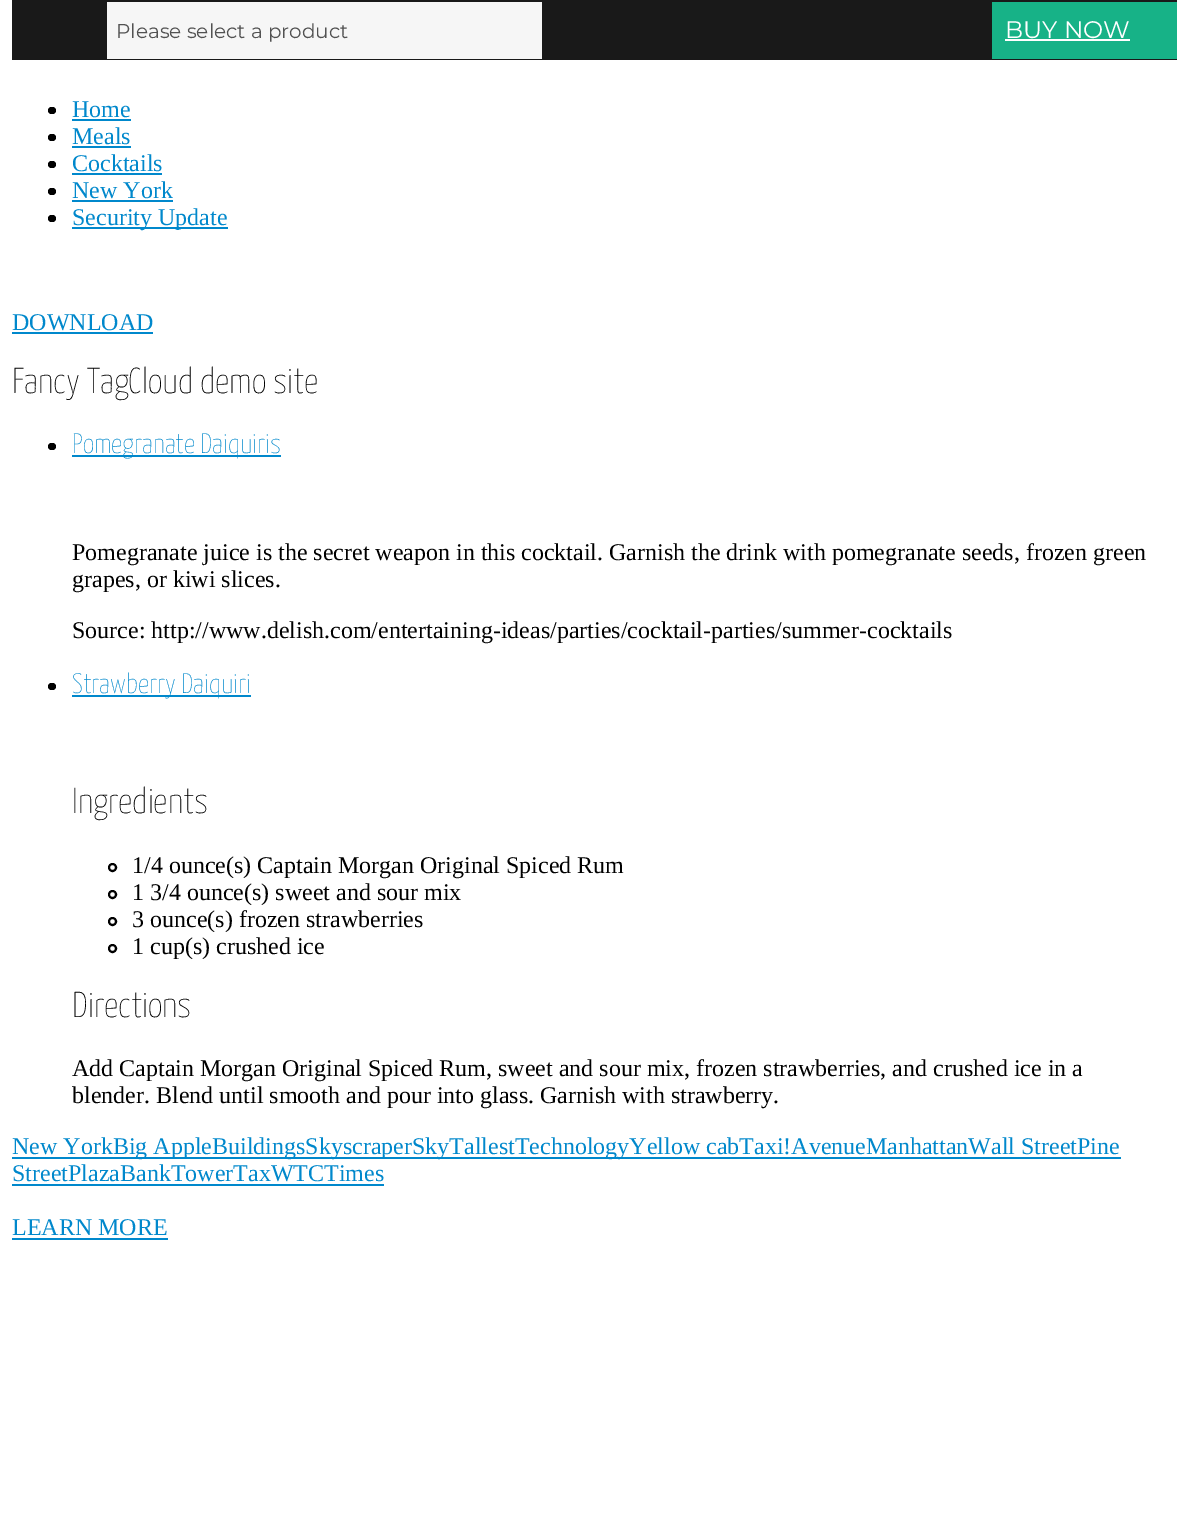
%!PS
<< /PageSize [1177 1516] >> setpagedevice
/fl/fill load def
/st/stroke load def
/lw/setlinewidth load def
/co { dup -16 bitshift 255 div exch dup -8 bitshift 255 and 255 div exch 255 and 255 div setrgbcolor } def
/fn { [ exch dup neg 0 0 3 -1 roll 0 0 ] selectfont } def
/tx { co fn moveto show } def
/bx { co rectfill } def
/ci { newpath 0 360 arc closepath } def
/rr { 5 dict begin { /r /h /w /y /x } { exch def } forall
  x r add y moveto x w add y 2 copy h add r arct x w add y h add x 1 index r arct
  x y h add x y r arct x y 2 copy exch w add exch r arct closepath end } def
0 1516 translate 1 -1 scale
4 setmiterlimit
0 0 1177 1516 16#FFFFFF bx
12 0 1165 60 16#191919 bx
107 2 435 57 16#F6F6F6 bx
992 2 185 57 16#17B287 bx
1005 39 125 2 16#FFFFFF bx
16#000000 co
48 107 8 7 3.5 rr fl
72 119 59 2 16#0088CC bx
16#000000 co
48 134 8 7 3.5 rr fl
72 146 59 2 16#0088CC bx
16#000000 co
48 161 8 7 3.5 rr fl
72 173 90 2 16#0088CC bx
16#000000 co
48 188 8 7 3.5 rr fl
72 200 101 2 16#0088CC bx
16#000000 co
48 215 8 7 3.5 rr fl
72 227 156 2 16#0088CC bx
12 332 141 2 16#0088CC bx
16#000000 co
48 443 8 7 3.5 rr fl
72 455 209 2 16#0088CC bx
16#000000 co
48 683 8 7 3.5 rr fl
72 695 179 2 16#0088CC bx
16#000000 co
2 lw
112.5 867.5 3.5 ci st
112.5 894.5 3.5 ci st
112.5 921.5 3.5 ci st
112.5 948.5 3.5 ci st
12 1157 1109 2 16#0088CC bx
12 1184 372 2 16#0088CC bx
12 1238 156 2 16#0088CC bx
(Please select a product) 116 38 /Montserrat-Regular 20 16#525252 tx
(BUY NOW) 1005 38 /Montserrat-Regular 24 16#FFFFFF tx
(Home) 72 117 /LiberationSerif-Regular 24 16#0088CC tx
(Meals) 72 144 /LiberationSerif-Regular 24 16#0088CC tx
(Cocktails) 72 171 /LiberationSerif-Regular 24 16#0088CC tx
(New York) 72 198 /LiberationSerif-Regular 24 16#0088CC tx
(Security Update) 72 225 /LiberationSerif-Regular 24 16#0088CC tx
(DOWNLOAD) 12 330 /LiberationSerif-Regular 24 16#0088CC tx
(Fancy TagCloud demo site) 12 393 /YanoneKaffeesatz-ExtraLight 36 16#000000 tx
(Pomegranate Daiquiris) 72 453 /YanoneKaffeesatz-ExtraLight 28 16#0088CC tx
(Pomegranate juice is the secret weapon in this cocktail. Garnish the drink with pomegranate seeds, frozen green) 72 560 /LiberationSerif-Regular 24 16#000000 tx
(grapes, or kiwi slices.) 72 587 /LiberationSerif-Regular 24 16#000000 tx
(Source: http://www.delish.com/entertaining-ideas/parties/cocktail-parties/summer-cocktails) 72 638 /LiberationSerif-Regular 24 16#000000 tx
(Strawberry Daiquiri) 72 693 /YanoneKaffeesatz-ExtraLight 28 16#0088CC tx
(Ingredients) 72 813 /YanoneKaffeesatz-ExtraLight 36 16#000000 tx
(1/4 ounce\(s\) Captain Morgan Original Spiced Rum) 132 873 /LiberationSerif-Regular 24 16#000000 tx
(1 3/4 ounce\(s\) sweet and sour mix) 132 900 /LiberationSerif-Regular 24 16#000000 tx
(3 ounce\(s\) frozen strawberries) 132 927 /LiberationSerif-Regular 24 16#000000 tx
(1 cup\(s\) crushed ice) 132 954 /LiberationSerif-Regular 24 16#000000 tx
(Directions) 72 1017 /YanoneKaffeesatz-ExtraLight 36 16#000000 tx
(Add Captain Morgan Original Spiced Rum, sweet and sour mix, frozen strawberries, and crushed ice in a) 72 1076 /LiberationSerif-Regular 24 16#000000 tx
(blender. Blend until smooth and pour into glass. Garnish with strawberry.) 72 1103 /LiberationSerif-Regular 24 16#000000 tx
(New YorkBig AppleBuildingsSkyscraperSkyTallestTechnologyYellow cabTaxi!AvenueManhattanWall StreetPine) 12 1154 /LiberationSerif-Regular 24 16#0088CC tx
(StreetPlazaBankTowerTaxWTCTimes) 12 1181 /LiberationSerif-Regular 24 16#0088CC tx
(LEARN MORE) 12 1235 /LiberationSerif-Regular 24 16#0088CC tx
showpage
